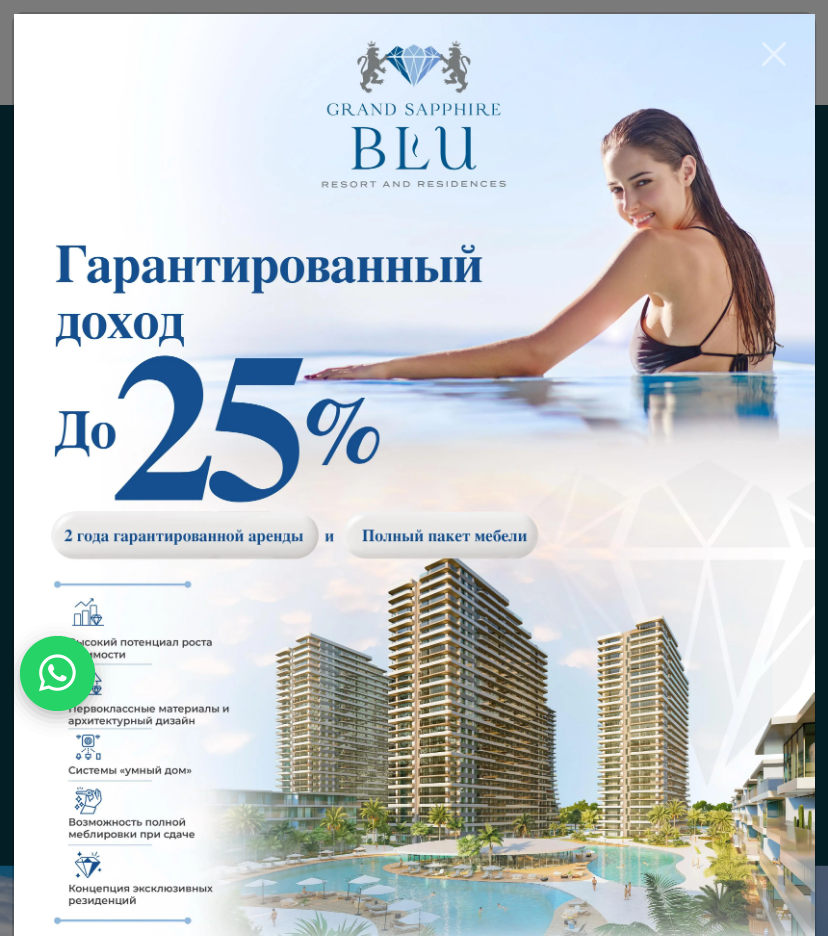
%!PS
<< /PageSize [828 936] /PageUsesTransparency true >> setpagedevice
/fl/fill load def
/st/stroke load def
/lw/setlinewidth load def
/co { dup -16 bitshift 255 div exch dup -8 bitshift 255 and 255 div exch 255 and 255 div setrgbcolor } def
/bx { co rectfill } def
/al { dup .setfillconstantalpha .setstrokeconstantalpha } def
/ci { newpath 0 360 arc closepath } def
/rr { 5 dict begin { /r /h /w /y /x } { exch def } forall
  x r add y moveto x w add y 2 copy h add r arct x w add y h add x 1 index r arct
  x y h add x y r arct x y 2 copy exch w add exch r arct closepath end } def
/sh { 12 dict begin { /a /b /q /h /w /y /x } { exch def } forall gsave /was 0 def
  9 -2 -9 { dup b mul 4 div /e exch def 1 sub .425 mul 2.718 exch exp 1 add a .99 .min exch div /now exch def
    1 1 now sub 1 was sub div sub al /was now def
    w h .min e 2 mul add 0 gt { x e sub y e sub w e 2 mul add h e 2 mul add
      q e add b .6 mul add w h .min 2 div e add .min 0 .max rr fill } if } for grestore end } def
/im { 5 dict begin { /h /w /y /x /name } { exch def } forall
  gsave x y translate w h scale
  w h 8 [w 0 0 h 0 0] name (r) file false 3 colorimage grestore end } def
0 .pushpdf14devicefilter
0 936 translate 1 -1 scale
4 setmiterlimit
0 0 828 936 16#041E26 bx
0 0 828 105 16#7A7A7A bx
(media/4.raw) 0 865 14 71 im
(media/5.raw) 815 865 13 71 im
0.18 al
16#000000 co
2 lw
13 13 802 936 11 rr st
1 al
14 14 37 922 16#FFFFFF bx
(media/1.raw) 51 14 764 922 im
(media/2.raw) 762 42 24 24 im
16#000000 co
20 642 75 75 37.5 9 .25 sh
16#25D366 co
57.5 673.5 37.5 ci fl
(media/3.raw) 39 654 37 38 im
.poppdf14devicefilter showpage
